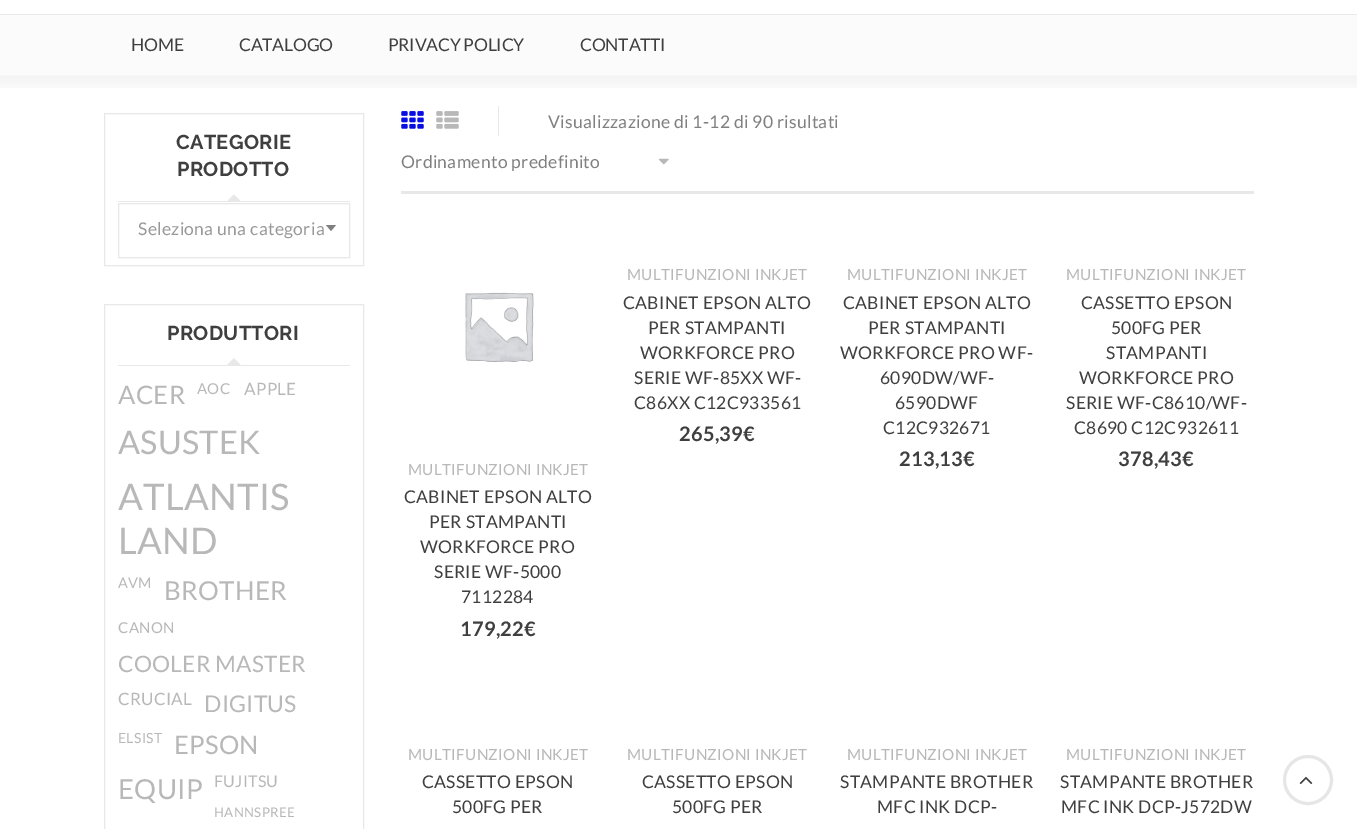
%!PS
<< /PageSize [1357 829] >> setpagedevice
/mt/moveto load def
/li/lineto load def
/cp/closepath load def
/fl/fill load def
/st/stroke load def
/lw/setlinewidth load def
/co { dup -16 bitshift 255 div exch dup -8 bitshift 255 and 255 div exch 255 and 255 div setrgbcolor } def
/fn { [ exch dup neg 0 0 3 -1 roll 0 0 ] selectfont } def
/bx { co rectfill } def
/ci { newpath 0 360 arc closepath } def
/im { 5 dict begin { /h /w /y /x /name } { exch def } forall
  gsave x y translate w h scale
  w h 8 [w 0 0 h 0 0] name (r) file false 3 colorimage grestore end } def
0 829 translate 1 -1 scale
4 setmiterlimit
0 0 1357 829 16#FFFFFF bx
0 15 1357 60 16#FBFBFB bx
0 14 1357 1 16#E8E8E8 bx
(media/1.raw) 0 75 1357 13 im
104.5 113.5 259 152 rectstroke
(media/2.raw) 227 194 13 7 im
118 201 232 1 16#E8E8E8 bx
118.5 203.5 231 54 rectstroke
16#808080 co
326 225 mt 336 225 li 331 231 li cp fl
16#E8E8E8 co
104.5 304.5 259 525 rectstroke
(media/3.raw) 227 358 14 7 im
118 365 232 1 16#E8E8E8 bx
401 191 853 3 16#E8E8E8 bx
498 106 1 30 16#E8E8E8 bx
(media/4.raw) 401 111 23 18 im
(media/5.raw) 436 111 23 18 im
(media/6.raw) 658 158 11 7 im
(media/7.raw) 465 292 69 70 im
16#E6E6E6 co
3 lw
1308 780 23.5 ci st
(media/8.raw) 1299 776 14 9 im
/Lato-Regular 17.5 fn
16#3F3F3F co
131 51 mt -.25 0 (HOME) ashow
239 51 mt -.25 0 (CATALOGO) ashow
388 51 mt -.25 0 (PRIVACY POLICY) ashow
580 51 mt -.25 0 (CONTATTI) ashow
/Raleway-Bold 20 fn
176 149 mt .3 0 (CATEGORIE) ashow
177 176 mt .3 0 (PRODOTTO) ashow
/Lato-Regular 17.5 fn
16#999999 co
138 235 mt .3 0 (Seleziona una categoria) ashow
/Raleway-Bold 20 fn
16#3F3F3F co
167 340 mt .3 0 (PRODUTTORI) ashow
/Lato-Regular 25.5 fn
16#B8B8B8 co
118 404 mt .3 0 (ACER) ashow
/Lato-Regular 15 fn
197 394 mt .3 0 (AOC) ashow
/Lato-Regular 17 fn
244 395 mt .3 0 (APPLE) ashow
/Lato-Regular 32.5 fn
118 454 mt .3 0 (ASUSTEK) ashow
/Lato-Regular 36.5 fn
118 510 mt .3 0 (ATLANTIS) ashow
118 554 mt .3 0 (LAND) ashow
/Lato-Regular 14.5 fn
118 588 mt .3 0 (AVM) ashow
/Lato-Regular 26 fn
164 600 mt .3 0 (BROTHER) ashow
/Lato-Regular 15 fn
118 633 mt .3 0 (CANON) ashow
/Lato-Regular 22.6 fn
118 672 mt .3 0 (COOLER MASTER) ashow
/Lato-Regular 17 fn
118 705 mt .3 0 (CRUCIAL) ashow
/Lato-Regular 23 fn
204 712 mt .3 0 (DIGITUS) ashow
/Lato-Regular 14 fn
118 743 mt .3 0 (ELSIST) ashow
/Lato-Regular 25.5 fn
174 754 mt .3 0 (EPSON) ashow
/Lato-Regular 27.5 fn
118 799 mt .3 0 (EQUIP) ashow
/Lato-Regular 16 fn
214 787 mt .3 0 (FUJITSU) ashow
/Lato-Regular 13.25 fn
214 817 mt .3 0 (HANNSPREE) ashow
/Lato-Regular 17.5 fn
16#808080 co
548 128 mt .3 0 (Visualizzazione di 1-12 di 90 risultati) ashow
401 168 mt .3 0 (Ordinamento predefinito) ashow
/Lato-Regular 15.25 fn
16#B8B8B8 co
627 280 mt .3 0 (MULTIFUNZIONI INKJET) ashow
/Lato-Regular 17.5 fn
16#3F3F3F co
623 309 mt .25 0 (CABINET EPSON ALTO) ashow
648 334 mt .25 0 (PER STAMPANTI) ashow
640 359 mt .25 0 (WORKFORCE PRO) ashow
634 384 mt .25 0 (SERIE WF-85XX WF-) ashow
634 409 mt .25 0 (C86XX C12C933561) ashow
/Lato-Bold 20 fn
679 441 mt .3 0 (265,39€) ashow
/Lato-Regular 15.25 fn
16#B8B8B8 co
847 280 mt .3 0 (MULTIFUNZIONI INKJET) ashow
/Lato-Regular 17.5 fn
16#3F3F3F co
843 309 mt .25 0 (CABINET EPSON ALTO) ashow
868 334 mt .25 0 (PER STAMPANTI) ashow
840 359 mt .25 0 (WORKFORCE PRO WF-) ashow
880 384 mt .25 0 (6090DW/WF-) ashow
895 409 mt .25 0 (6590DWF) ashow
883 434 mt .25 0 (C12C932671) ashow
/Lato-Bold 20 fn
899 466 mt .3 0 (213,13€) ashow
/Lato-Regular 15.25 fn
16#B8B8B8 co
1066 280 mt .3 0 (MULTIFUNZIONI INKJET) ashow
/Lato-Regular 17.5 fn
16#3F3F3F co
1081 309 mt .25 0 (CASSETTO EPSON) ashow
1111 334 mt .25 0 (500FG PER) ashow
1106 359 mt .25 0 (STAMPANTI) ashow
1079 384 mt .25 0 (WORKFORCE PRO) ashow
1066 409 mt .25 0 (SERIE WF-C8610/WF-) ashow
1074 434 mt .25 0 (C8690 C12C932611) ashow
/Lato-Bold 20 fn
1118 466 mt .3 0 (378,43€) ashow
/Lato-Regular 15.25 fn
16#B8B8B8 co
408 475 mt .3 0 (MULTIFUNZIONI INKJET) ashow
/Lato-Regular 17.5 fn
16#3F3F3F co
404 503 mt .25 0 (CABINET EPSON ALTO) ashow
429 528 mt .25 0 (PER STAMPANTI) ashow
420 553 mt .25 0 (WORKFORCE PRO) ashow
434 578 mt .25 0 (SERIE WF-5000) ashow
461 603 mt .25 0 (7112284) ashow
/Lato-Bold 20 fn
460 636 mt .3 0 (179,22€) ashow
/Lato-Regular 15.25 fn
16#B8B8B8 co
408 760 mt .3 0 (MULTIFUNZIONI INKJET) ashow
/Lato-Regular 17.5 fn
16#3F3F3F co
422 788 mt .25 0 (CASSETTO EPSON) ashow
452 813 mt .25 0 (500FG PER) ashow
/Lato-Regular 15.25 fn
16#B8B8B8 co
627 760 mt .3 0 (MULTIFUNZIONI INKJET) ashow
/Lato-Regular 17.5 fn
16#3F3F3F co
642 788 mt .25 0 (CASSETTO EPSON) ashow
672 813 mt .25 0 (500FG PER) ashow
/Lato-Regular 15.25 fn
16#B8B8B8 co
847 760 mt .3 0 (MULTIFUNZIONI INKJET) ashow
/Lato-Regular 17.5 fn
16#3F3F3F co
840 788 mt .25 0 (STAMPANTE BROTHER) ashow
877 813 mt .25 0 (MFC INK DCP-) ashow
/Lato-Regular 15.25 fn
16#B8B8B8 co
1066 760 mt .3 0 (MULTIFUNZIONI INKJET) ashow
/Lato-Regular 17.5 fn
16#3F3F3F co
1060 788 mt .25 0 (STAMPANTE BROTHER) ashow
1061 813 mt .25 0 (MFC INK DCP-J572DW) ashow
showpage
